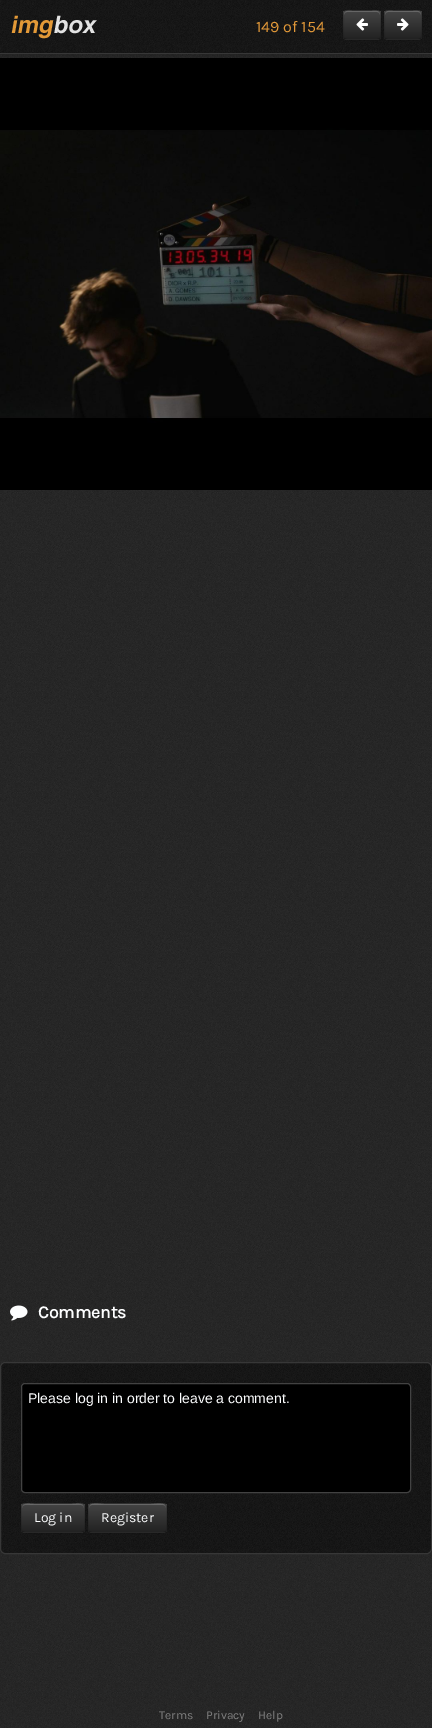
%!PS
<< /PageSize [432 1728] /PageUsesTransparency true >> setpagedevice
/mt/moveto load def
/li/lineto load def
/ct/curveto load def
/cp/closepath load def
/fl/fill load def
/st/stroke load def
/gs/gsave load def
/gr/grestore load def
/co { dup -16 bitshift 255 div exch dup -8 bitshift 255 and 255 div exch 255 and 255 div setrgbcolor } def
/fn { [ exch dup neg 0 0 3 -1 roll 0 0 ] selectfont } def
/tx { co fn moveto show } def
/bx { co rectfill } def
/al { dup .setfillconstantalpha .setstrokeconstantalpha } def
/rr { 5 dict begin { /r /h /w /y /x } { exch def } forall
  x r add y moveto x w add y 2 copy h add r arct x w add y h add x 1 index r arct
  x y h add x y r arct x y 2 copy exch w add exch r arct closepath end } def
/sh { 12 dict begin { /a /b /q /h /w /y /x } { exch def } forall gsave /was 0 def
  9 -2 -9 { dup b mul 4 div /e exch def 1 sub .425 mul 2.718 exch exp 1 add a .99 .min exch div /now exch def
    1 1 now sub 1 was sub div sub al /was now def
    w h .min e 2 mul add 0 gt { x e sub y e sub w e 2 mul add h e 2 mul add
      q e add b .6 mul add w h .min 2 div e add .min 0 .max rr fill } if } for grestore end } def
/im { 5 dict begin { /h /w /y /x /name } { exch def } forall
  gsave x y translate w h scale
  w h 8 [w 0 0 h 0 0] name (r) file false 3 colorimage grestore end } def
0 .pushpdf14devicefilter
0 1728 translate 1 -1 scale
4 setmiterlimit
0 0 432 1728 16#FFFFFF bx
(media/1.raw) 0 54 432 1674 im
16#000000 co
0 1 432 54 0 5 .1 sh
(media/2.raw) 0 0 432 53 im
0 53 432 1 16#373737 bx
(media/3.raw) 11 15 86 24 im
16#363636 co
343 10 38 30 4 rr fl
gs
343 10 38 30 4 rr clip newpath
gs 343 11 mt 381 11 li 381 39 li 343 39 li cp clip newpath
<< /ShadingType 2 /ColorSpace /DeviceRGB /Coords [362 11 362 39] /Extend [true true] /Function << /FunctionType 2 /Domain [0 1] /C0 [.267 .267 .267] /C1 [.133 .133 .133] /N 1 >> >> shfill gr
gr
16#696969 co
347 12 mt 377 12 li 379 12 380 13 380 15 ct 380 10 376 11 372 11 ct 352 11 li 348 11 344 10 344 15 ct 344 13 345 12 347 12 ct cp fl
0.25 al
16#000000 co
379.5 38.5 mt 379 39 378 39.5 377 39.5 ct 347 39.5 li 346 39.5 345 39 344.5 38.5 ct st
0.1 al
344.5 38.5 mt 344 38 343.5 37 343.5 36 ct 343.5 14 li 343.5 13 344 12 344.5 11.5 ct 345 11 346 10.5 347 10.5 ct 377 10.5 li 378 10.5 379 11 379.5 11.5 ct 380 12 380.5 13 380.5 14 ct 380.5 36 li 380.5 37 380 38 379.5 38.5 ct st
1 al
(media/4.raw) 356 18 12 13 im
16#363636 co
384 10 38 30 4 rr fl
gs
384 10 38 30 4 rr clip newpath
gs 384 11 mt 422 11 li 422 39 li 384 39 li cp clip newpath
<< /ShadingType 2 /ColorSpace /DeviceRGB /Coords [403 11 403 39] /Extend [true true] /Function << /FunctionType 2 /Domain [0 1] /C0 [.267 .267 .267] /C1 [.133 .133 .133] /N 1 >> >> shfill gr
gr
16#696969 co
388 12 mt 418 12 li 420 12 421 13 421 15 ct 421 10 417 11 413 11 ct 393 11 li 389 11 385 10 385 15 ct 385 13 386 12 388 12 ct cp fl
0.25 al
16#000000 co
420.5 38.5 mt 420 39 419 39.5 418 39.5 ct 388 39.5 li 387 39.5 386 39 385.5 38.5 ct st
0.1 al
385.5 38.5 mt 385 38 384.5 37 384.5 36 ct 384.5 14 li 384.5 13 385 12 385.5 11.5 ct 386 11 387 10.5 388 10.5 ct 418 10.5 li 419 10.5 420 11 420.5 11.5 ct 421 12 421.5 13 421.5 14 ct 421.5 36 li 421.5 37 421 38 420.5 38.5 ct st
1 al
(media/5.raw) 397 18 12 13 im
(media/6.raw) 0 58 432 432 im
(media/7.raw) 10 1305 18 16 im
(media/8.raw) 0 1362 432 192 im
16#373737 co
.5 1362.5 431 191 4.5 rr st
16#000000 co
21.5 1383.5 389 109 3.5 rr gs fl gr
16#424242 co
st
16#363636 co
21 1503 64 30 4 rr fl
gs
21 1503 64 30 4 rr clip newpath
gs 21 1504 mt 85 1504 li 85 1532 li 21 1532 li cp clip newpath
<< /ShadingType 2 /ColorSpace /DeviceRGB /Coords [53 1504 53 1532] /Extend [true true] /Function << /FunctionType 2 /Domain [0 1] /C0 [.267 .267 .267] /C1 [.133 .133 .133] /N 1 >> >> shfill gr
gr
16#696969 co
25 1505 mt 81 1505 li 83 1505 84 1506 84 1508 ct 84 1502 76 1504 72 1504 ct 34 1504 li 30 1504 22 1502 22 1508 ct 22 1506 23 1505 25 1505 ct cp fl
0.25 al
16#000000 co
83.5 1531.5 mt 81.5 1532.5 li 24.5 1532.5 li 22.5 1531.5 li st
0.1 al
22.5 1531.5 mt 20.5 1529.5 21.5 1521 21.5 1518 ct 21.5 1502.5 19 1503.5 34.5 1503.5 ct 71.5 1503.5 li 87 1503.5 84.5 1502.5 84.5 1518 ct 84.5 1521 85.5 1529.5 83.5 1531.5 ct st
1 al
16#363636 co
88 1503 79 30 4 rr fl
gs
88 1503 79 30 4 rr clip newpath
gs 88 1504 mt 167 1504 li 167 1532 li 88 1532 li cp clip newpath
<< /ShadingType 2 /ColorSpace /DeviceRGB /Coords [128 1504 128 1532] /Extend [true true] /Function << /FunctionType 2 /Domain [0 1] /C0 [.267 .267 .267] /C1 [.133 .133 .133] /N 1 >> >> shfill gr
gr
0.2 al
16#FFFFFF co
92 1505 mt 163 1505 li 165 1505 166 1506 166 1508 ct 166 1501 155 1504 151 1504 ct 104 1504 li 100 1504 89 1501 89 1508 ct 89 1506 90 1505 92 1505 ct cp fl
0.25 al
16#000000 co
165.5 1531.5 mt 165 1532 164 1532.5 163 1532.5 ct 92 1532.5 li 91 1532.5 90 1532 89.5 1531.5 ct st
0.1 al
89.5 1531.5 mt 87.5 1529.5 88.5 1521 88.5 1518 ct 88.5 1501 86 1503.5 104 1503.5 ct 151 1503.5 li 169 1503.5 166.5 1501 166.5 1518 ct 166.5 1521 167.5 1529.5 165.5 1531.5 ct st
1 al
(149 of 154) 256 32 /Karla-Regular 16 16#E39938 tx
(Comments) 38 1318 /Karla-Bold 17.5 16#FDFEFF tx
(Please log in in order to leave a comment.) 28 1403 /LiberationSans-Regular 14 16#FDFEFF tx
(Log in) 34 1522 /Karla-Regular 14 16#FDFEFF tx
(Register) 101 1522 /Karla-Regular 14 16#FDFEFF tx
(Terms) 159 1719 /Karla-Regular 12 16#808080 tx
(Privacy) 206 1719 /Karla-Regular 12 16#808080 tx
(Help) 258 1719 /Karla-Regular 12 16#808080 tx
.poppdf14devicefilter showpage
